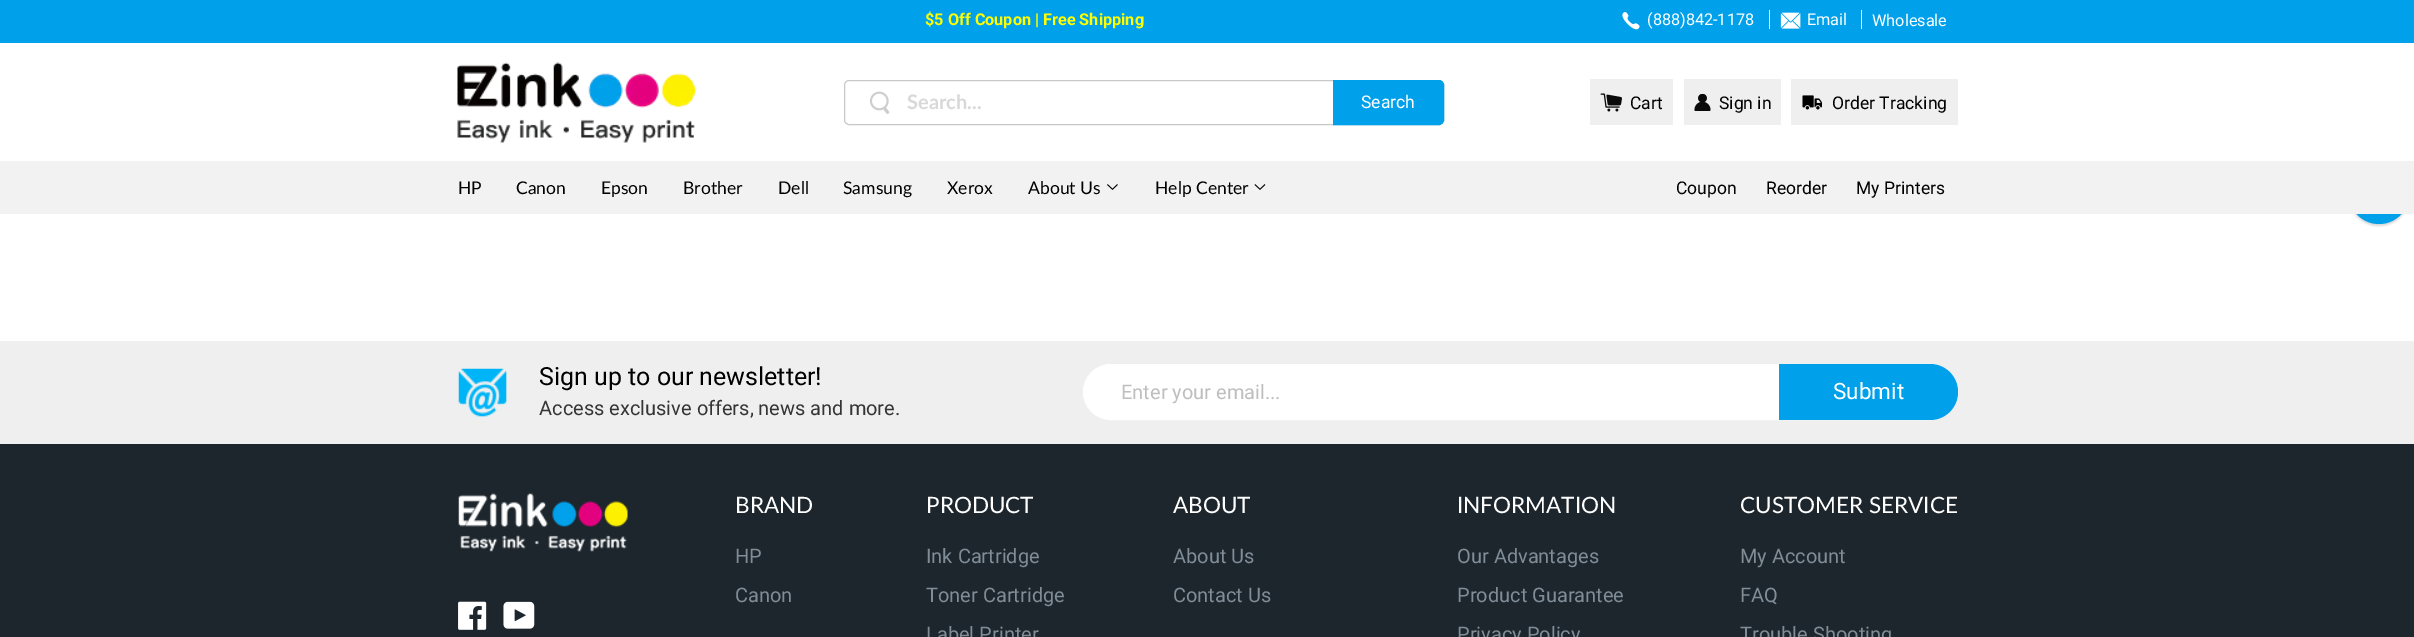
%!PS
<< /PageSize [2414 637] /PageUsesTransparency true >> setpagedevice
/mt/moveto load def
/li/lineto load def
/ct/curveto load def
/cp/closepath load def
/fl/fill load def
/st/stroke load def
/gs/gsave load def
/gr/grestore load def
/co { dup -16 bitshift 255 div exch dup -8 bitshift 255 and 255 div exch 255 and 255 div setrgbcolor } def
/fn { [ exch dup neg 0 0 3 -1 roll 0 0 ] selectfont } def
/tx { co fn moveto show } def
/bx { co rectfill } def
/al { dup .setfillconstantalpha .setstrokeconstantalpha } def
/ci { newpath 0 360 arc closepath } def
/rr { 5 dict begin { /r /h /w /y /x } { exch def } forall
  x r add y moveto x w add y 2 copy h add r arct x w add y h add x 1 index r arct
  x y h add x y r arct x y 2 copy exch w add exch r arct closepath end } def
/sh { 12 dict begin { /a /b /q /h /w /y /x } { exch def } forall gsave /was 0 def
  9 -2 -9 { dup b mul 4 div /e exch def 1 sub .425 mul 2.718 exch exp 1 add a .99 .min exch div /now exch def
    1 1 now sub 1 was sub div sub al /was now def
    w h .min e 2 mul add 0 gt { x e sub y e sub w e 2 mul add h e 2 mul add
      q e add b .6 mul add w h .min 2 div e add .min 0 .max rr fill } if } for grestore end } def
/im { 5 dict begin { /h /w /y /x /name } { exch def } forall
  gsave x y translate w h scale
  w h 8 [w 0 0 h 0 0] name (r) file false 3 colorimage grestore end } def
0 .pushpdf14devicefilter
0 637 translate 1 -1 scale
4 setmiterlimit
0 0 2414 637 16#FFFFFF bx
0 0 2414 43 16#00A1EA bx
(media/1.raw) 1622 12 18 18 im
1769 10 1 19 16#FFFFFF bx
(media/2.raw) 1780 12 21 17 im
1861 10 1 19 16#FFFFFF bx
(media/3.raw) 457 62 238 81 im
(media/4.raw) 869 91 21 23 im
0.6 al
844.5 80.5 599 44 4.5 rr fl
1 al
16#C8C8C8 co
844.5 80.5 599 44 4.5 rr st
16#00A1EA co
1333.5 80.5 mt 1439 80.5 li 1441.5 80.5 1443.5 82.5 1443.5 85 ct 1443.5 120 li 1443.5 122.5 1441.5 124.5 1439 124.5 ct 1333.5 124.5 li cp gs fl gr
st
1590 79 83 46 16#EFEFEF bx
(media/5.raw) 1600 93 22 19 im
1684 79 97 46 16#EFEFEF bx
(media/6.raw) 1694 94 17 17 im
1791 79 167 46 16#EFEFEF bx
(media/7.raw) 1802 95 20 15 im
16#000000 co
2349 166 60 60 30 1 .15 sh
16#00A1EA co
2379 194 30 ci fl
0 161 2414 53 16#F2F2F2 bx
(media/8.raw) 1107 184 11 6 im
(media/9.raw) 1254 184 12 6 im
0 341 2414 103 16#EFEFEF bx
(media/10.raw) 458 368 49 49 im
16#FFFFFF co
1083.5 364.5 874 55 27.5 rr gs fl gr
st
16#00A1EA co
1779 364 mt 1930 364 li 1945.5 364 1958 376.5 1958 392 ct 1958 407.5 1945.5 420 1930 420 ct 1779 420 li cp fl
0 444 2414 193 16#1D262D bx
(media/11.raw) 458 493 170 59 im
(media/12.raw) 458 601 29 29 im
(media/13.raw) 503 601 32 28 im
($5 Off Coupon | Free Shipping) 925 25 /Roboto-Bold 16.25 16#FFFF00 tx
(\(888\)842-1178) 1647 25 /Roboto-Regular 16.25 16#FFFFFF tx
(Email) 1807 25 /Roboto-Regular 16.25 16#FFFFFF tx
(Wholesale) 1872 26 /Roboto-Regular 16.25 16#FFFFFF tx
(Search...) 907 109 /Lato-Bold 20 16#D8D8D8 tx
(Search) 1361 108 /Roboto-Regular 17.5 16#FFFFFF tx
(Cart) 1630 109 /Roboto-Regular 17.5 16#000000 tx
(Sign in) 1719 109 /Roboto-Regular 17.5 16#000000 tx
(Order Tracking) 1832 109 /Roboto-Regular 17.5 16#000000 tx
(HP) 458 194 /Lato-Regular 17.5 16#000000 tx
(Canon) 516 194 /Lato-Regular 17.5 16#000000 tx
(Epson) 601 194 /Lato-Regular 17.5 16#000000 tx
(Brother) 683 194 /Lato-Regular 17.5 16#000000 tx
(Dell) 778 194 /Lato-Regular 17.5 16#000000 tx
(Samsung) 843 194 /Lato-Regular 17.5 16#000000 tx
(Xerox) 947 194 /Lato-Regular 17.5 16#000000 tx
(About Us) 1028 194 /Lato-Regular 17.5 16#000000 tx
(Help Center) 1155 194 /Lato-Regular 17.5 16#000000 tx
(Coupon) 1676 194 /Roboto-Regular 17.5 16#000000 tx
(Reorder) 1766 194 /Roboto-Regular 17.5 16#000000 tx
(My Printers) 1856 194 /Roboto-Regular 17.5 16#000000 tx
(Sign up to our newsletter!) 539 385 /Roboto-Regular 25 16#000000 tx
(Access exclusive offers, news and more.) 539 415 /Roboto-Regular 20 16#353535 tx
(Enter your email...) 1121 399 /Roboto-Regular 20 16#BEBEBE tx
(Submit) 1833 399 /Roboto-Regular 22.5 16#FFFFFF tx
(BRAND) 735 513 /Lato-Regular 22.5 16#FFFFFF tx
(HP) 735 563 /Roboto-Regular 20 16#808C96 tx
(Canon) 735 602 /Roboto-Regular 20 16#808C96 tx
(PRODUCT) 926 513 /Lato-Regular 22.5 16#FFFFFF tx
(Ink Cartridge) 926 563 /Roboto-Regular 20 16#808C96 tx
(Toner Cartridge) 926 602 /Roboto-Regular 20 16#808C96 tx
(Label Printer) 926 641 /Roboto-Regular 20 16#808C96 tx
(ABOUT) 1173 513 /Lato-Regular 22.5 16#FFFFFF tx
(About Us) 1173 563 /Roboto-Regular 20 16#808C96 tx
(Contact Us) 1173 602 /Roboto-Regular 20 16#808C96 tx
(INFORMATION) 1457 513 /Lato-Regular 22.5 16#FFFFFF tx
(Our Advantages) 1457 563 /Roboto-Regular 20 16#808C96 tx
(Product Guarantee) 1457 602 /Roboto-Regular 20 16#808C96 tx
(Privacy Policy) 1457 641 /Roboto-Regular 20 16#808C96 tx
(CUSTOMER SERVICE) 1740 513 /Lato-Regular 22.5 16#FFFFFF tx
(My Account) 1740 563 /Roboto-Regular 20 16#808C96 tx
(FAQ) 1740 602 /Roboto-Regular 20 16#808C96 tx
(Trouble Shooting) 1740 641 /Roboto-Regular 20 16#808C96 tx
.poppdf14devicefilter showpage
